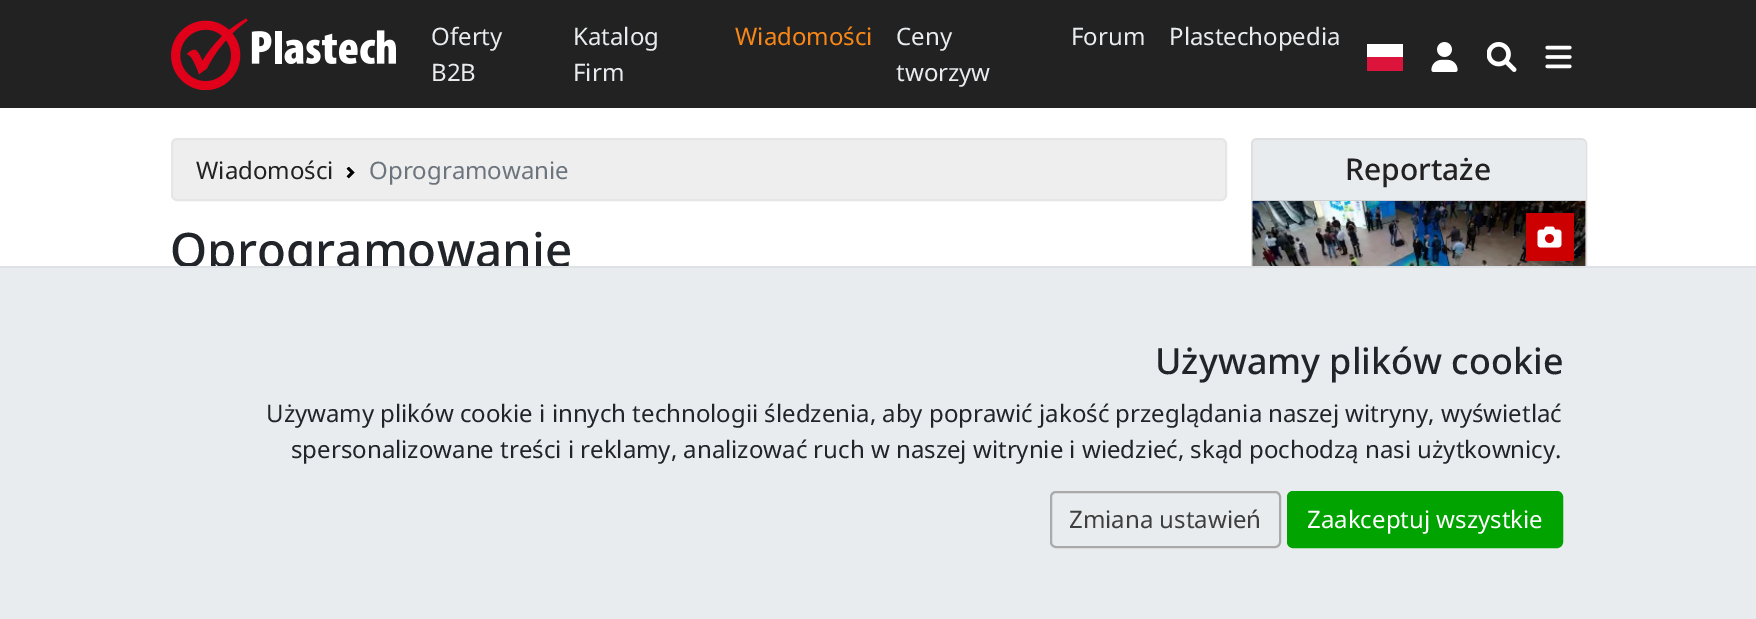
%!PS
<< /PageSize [1756 619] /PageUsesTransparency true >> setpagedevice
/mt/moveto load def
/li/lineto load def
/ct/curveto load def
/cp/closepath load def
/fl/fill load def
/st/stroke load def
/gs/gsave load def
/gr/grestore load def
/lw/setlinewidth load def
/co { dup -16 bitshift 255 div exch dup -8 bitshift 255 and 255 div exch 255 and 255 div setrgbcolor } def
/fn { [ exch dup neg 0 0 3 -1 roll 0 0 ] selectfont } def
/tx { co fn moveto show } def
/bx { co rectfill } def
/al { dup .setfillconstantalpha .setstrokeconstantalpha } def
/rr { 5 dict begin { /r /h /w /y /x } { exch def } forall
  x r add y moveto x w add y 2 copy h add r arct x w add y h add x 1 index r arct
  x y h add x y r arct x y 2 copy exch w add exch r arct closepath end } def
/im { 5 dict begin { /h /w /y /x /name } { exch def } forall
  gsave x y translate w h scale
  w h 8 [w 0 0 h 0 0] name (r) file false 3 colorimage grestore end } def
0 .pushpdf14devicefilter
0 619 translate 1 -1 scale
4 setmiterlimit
0 0 1756 619 16#FFFFFF bx
0 0 1756 108 16#222222 bx
(media/1.raw) 171 18 225 72 im
1367 44 36 13 16#FFFFFF bx
1367 57 36 14 16#DC143C bx
(media/2.raw) 1431 42 27 30 im
(media/3.raw) 1487 42 30 30 im
(media/4.raw) 1545 45 27 24 im
16#EEEEEE co
172 139 1054 61 5 rr gs fl gr
16#E6E6E6 co
2 lw
st
(media/5.raw) 346 167 9 12 im
16#DFDFDF co
1252 139 334 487 5 rr st
16#E9ECEF co
1258 140 mt 1581 140 li 1584 140 1586 142 1586 145 ct 1586 201 li 1253 201 li 1253 145 li 1253 142 1255 140 1258 140 ct cp fl
0.12 al
1253 200 333 1 16#000000 bx
1 al
1585 201 1 65 16#FFFFFF bx
(media/6.raw) 1252 201 334 65 im
1526 213 48 48 16#CC0000 bx
(media/7.raw) 1537 226 25 22 im
(Oferty) 431 45 /NotoSans-Regular 24 16#E9ECEF tx
(B2B) 431 81 /NotoSans-Regular 24 16#E9ECEF tx
(Katalog) 573 45 /NotoSans-Regular 24 16#E9ECEF tx
(Firm) 573 81 /NotoSans-Regular 24 16#E9ECEF tx
(Wiadomości) 735 45 /NotoSans-Regular 24 16#F88717 tx
(Ceny) 896 45 /NotoSans-Regular 24 16#E9ECEF tx
(tworzyw) 896 81 /NotoSans-Regular 24 16#E9ECEF tx
(Forum) 1071 45 /NotoSans-Regular 24 16#E9ECEF tx
(Plastechopedia) 1169 45 /NotoSans-Regular 24 16#E9ECEF tx
(Wiadomości) 196 179 /NotoSans-Regular 24 16#222222 tx
(Oprogramowanie) 369 179 /NotoSans-Regular 24 16#6C757D tx
(Oprogramowanie) 170 267 /NotoSans-Medium 47.5 16#212529 tx
(Reportaże) 1345 180 /NotoSans-Medium 30 16#222222 tx
0 268 1756 351 16#E9ECEF bx
0 266 1756 2 16#DEE2E6 bx
(Używamy plików cookie) 1155 374 /NotoSans-Medium 35.9 16#212529 tx
(Używamy plików cookie i innych technologii śledzenia, aby poprawić jakość przeglądania naszej witryny, wyświetlać) 266 422 /NotoSans-Regular 24 16#212529 tx
(spersonalizowane treści i reklamy, analizować ruch w naszej witrynie i wiedzieć, skąd pochodzą nasi użytkownicy.) 291 458 /NotoSans-Regular 24 16#212529 tx
16#AAAAAA co
1051 492 229 55 5 rr st
(Zmiana ustawień) 1069 528 /NotoSans-Regular 24 16#3F3F3F tx
16#00A300 co
1288 492 274 55 5 rr gs fl gr
st
(Zaakceptuj wszystkie) 1307 528 /NotoSans-Regular 24 16#FFFFFF tx
.poppdf14devicefilter showpage
